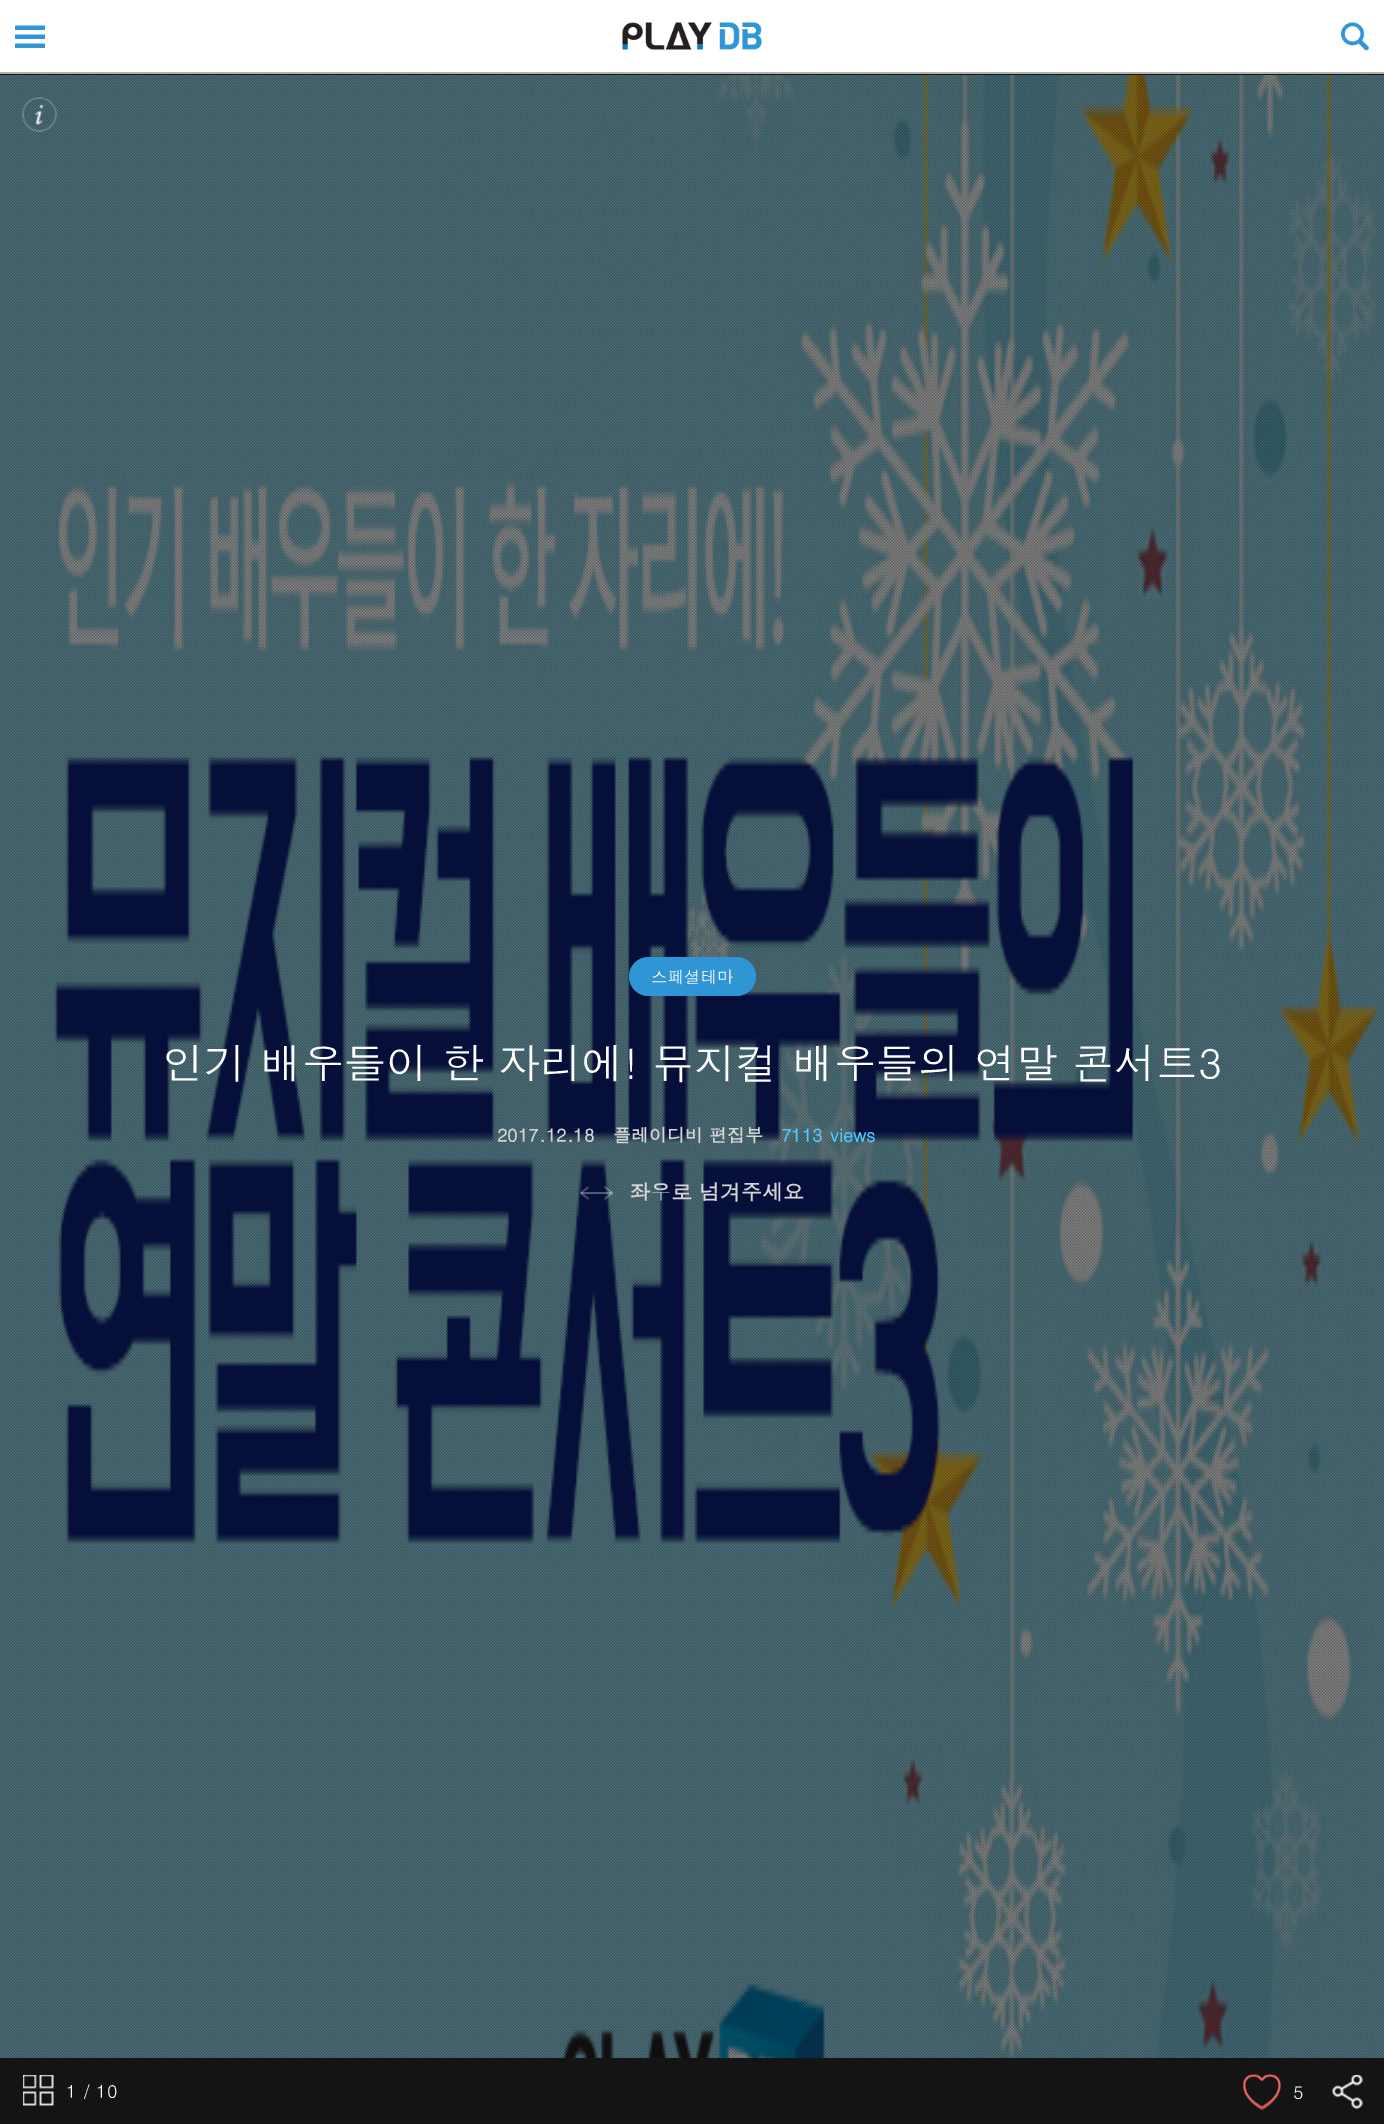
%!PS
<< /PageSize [1384 2124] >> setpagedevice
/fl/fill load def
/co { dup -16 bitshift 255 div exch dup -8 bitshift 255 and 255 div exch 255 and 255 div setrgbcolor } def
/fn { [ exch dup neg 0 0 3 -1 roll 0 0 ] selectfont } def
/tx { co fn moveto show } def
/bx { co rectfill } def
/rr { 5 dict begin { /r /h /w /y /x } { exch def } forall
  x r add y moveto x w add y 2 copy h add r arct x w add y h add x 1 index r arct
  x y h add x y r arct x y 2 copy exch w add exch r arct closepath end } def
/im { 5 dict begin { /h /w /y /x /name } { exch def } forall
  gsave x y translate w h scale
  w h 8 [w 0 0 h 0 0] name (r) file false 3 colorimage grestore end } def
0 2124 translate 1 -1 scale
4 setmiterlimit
0 0 1384 2124 16#141415 bx
0 0 1384 72 16#FFFFFF bx
0 72 1384 2 16#B2B2B2 bx
(media/1.raw) 15 25 30 23 im
(media/2.raw) 622 22 140 28 im
(media/3.raw) 1341 22 28 29 im
(media/4.raw) 0 75 1384 1983 im
(media/5.raw) 0 75 1384 1983 im
(media/6.raw) 22 97 35 35 im
16#3095D4 co
629 957 127 39 19.5 rr fl
(media/7.raw) 580 1186 34 14 im
(media/8.raw) 23 2075 31 31 im
(media/9.raw) 1243 2074 38 35 im
(media/10.raw) 1243 2075 38 36 im
(media/11.raw) 1332 2075 31 34 im
(스페셜테마) 651 983 /Dotum-Regular 16.5 16#FFFFFF tx
(인기 배우들이 한 자리에! 뮤지컬 배우들의 연말 콘서트3) 162 1079 /Dotum-Regular 42 16#FFFFFF tx
(2017.12.18) 497 1142 /Dotum-Bold 18 16#D5D5D5 tx
(플레이디비 편집부) 613 1142 /Dotum-Bold 18 16#D5D5D5 tx
(7113) 781 1142 /Dotum-Bold 18 16#51C8FF tx
(views) 830 1142 /Dotum-Bold 18 16#51C8FF tx
(좌우로 넘겨주세요) 629 1200 /Dotum-Bold 21 16#D5D5D5 tx
(1 / 10) 66 2098 /Dotum-Regular 18 16#FFFFFF tx
(5) 1293 2099 /Dotum-Regular 18 16#FFFFFF tx
showpage
